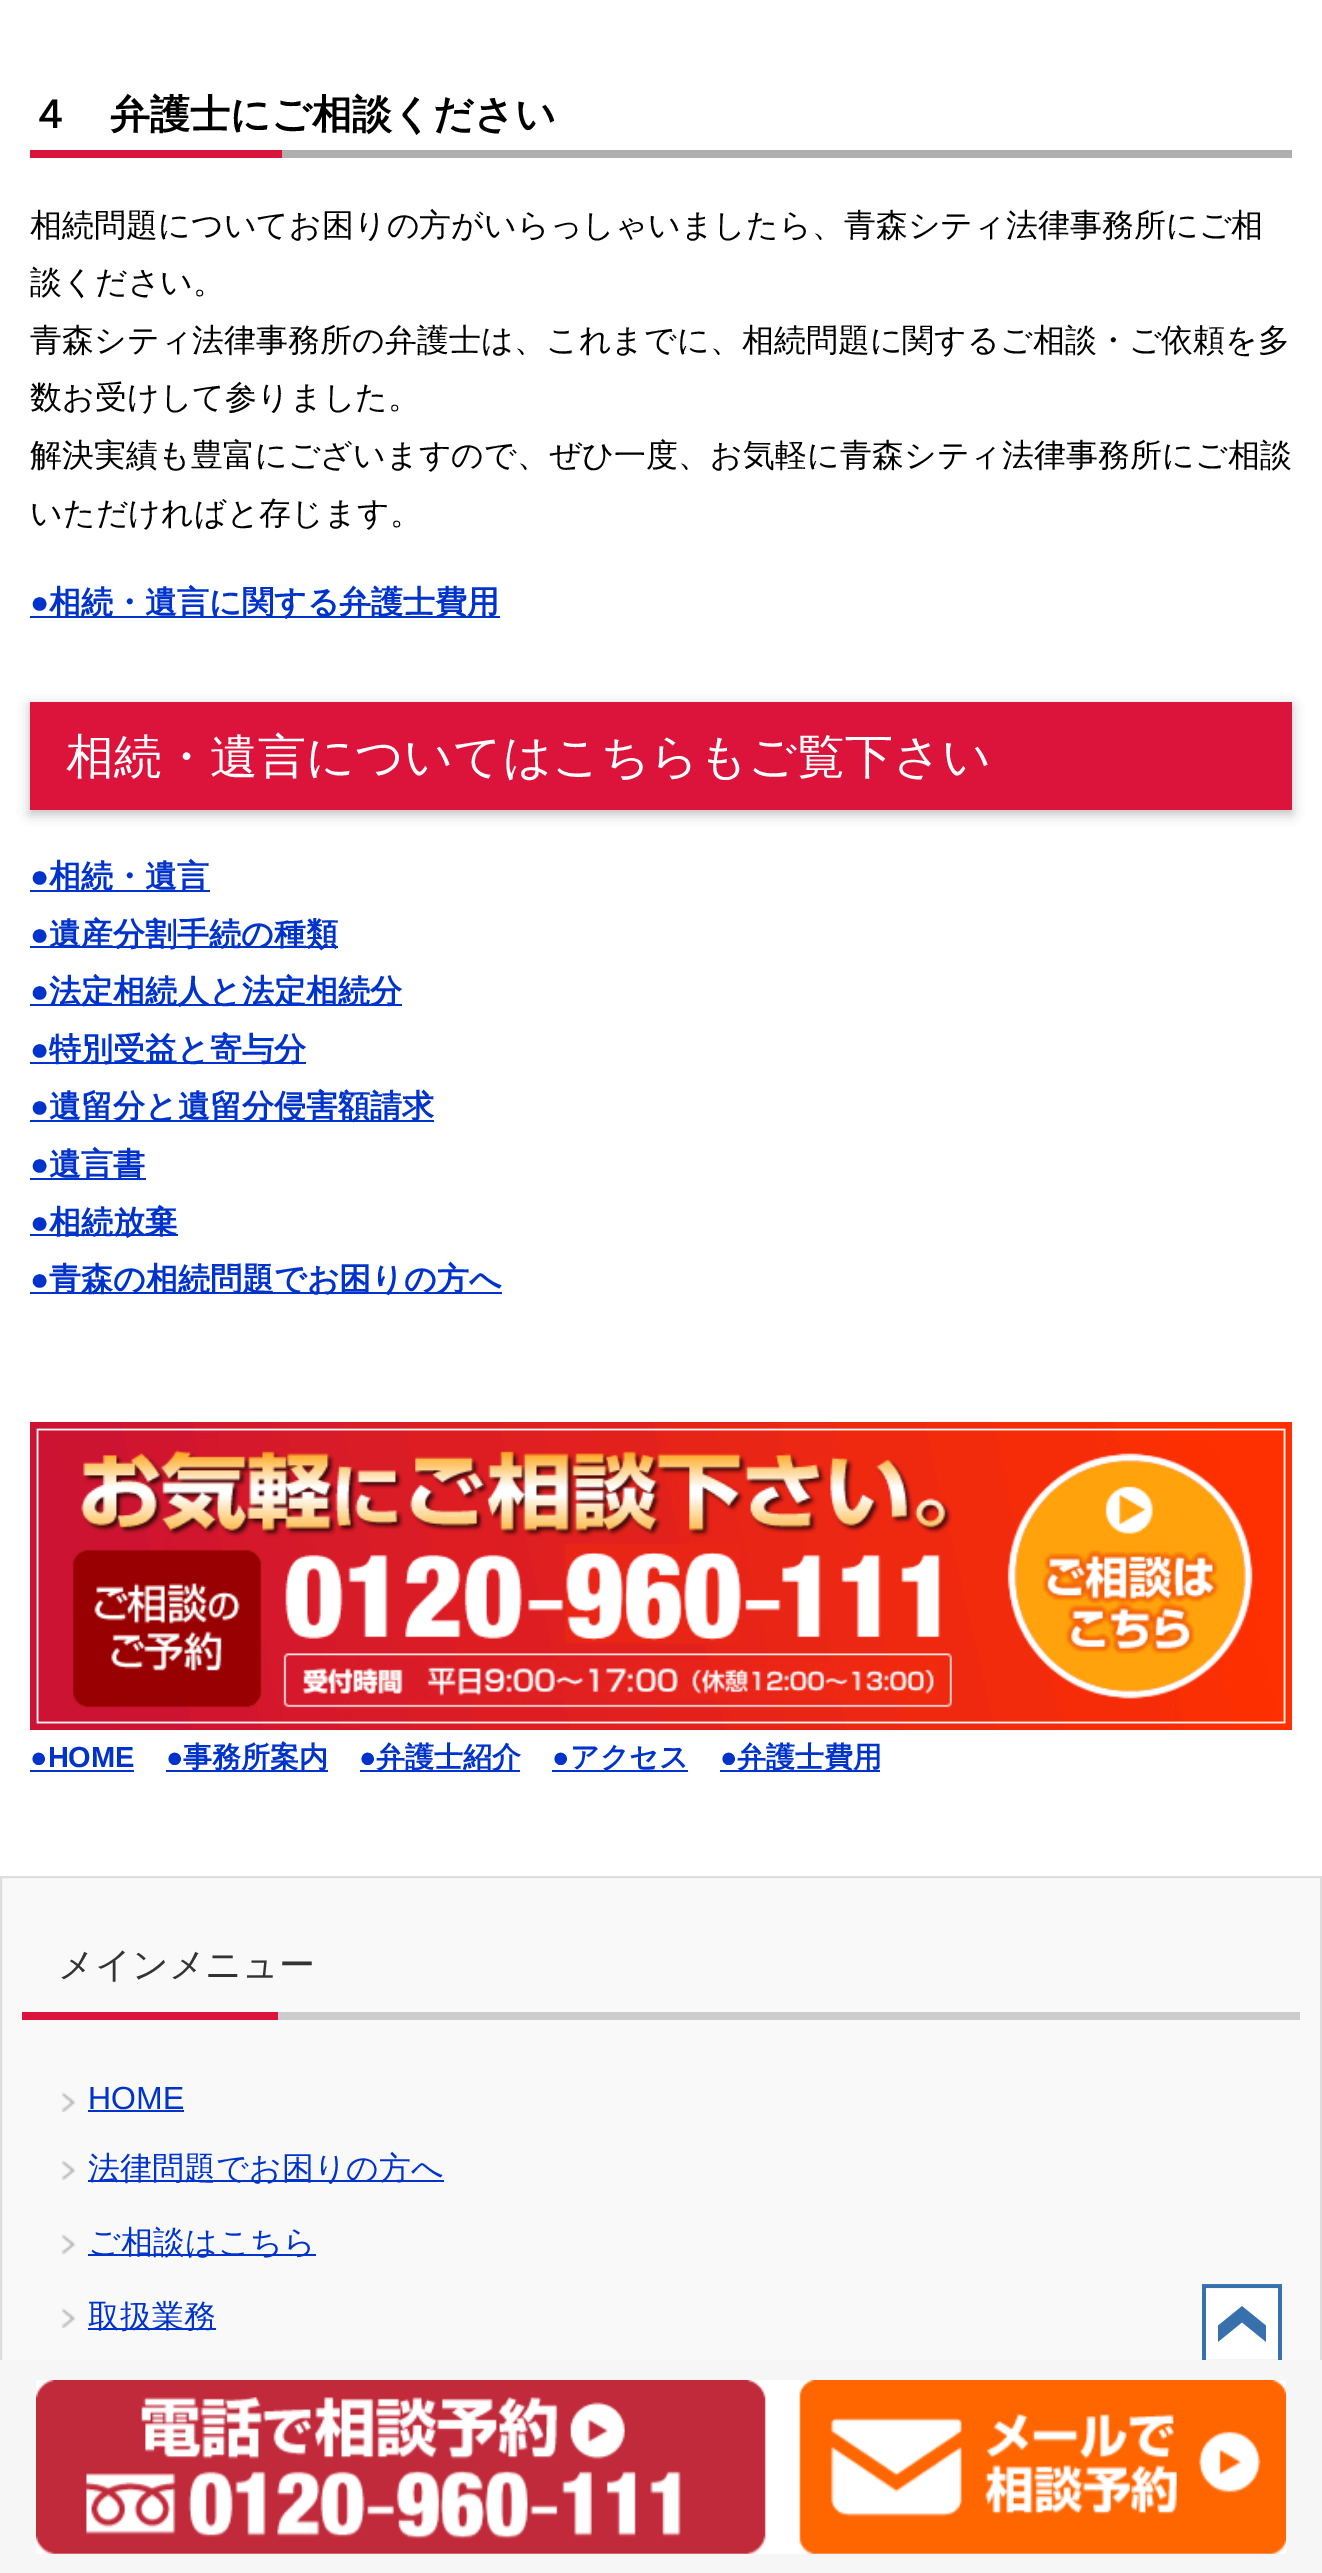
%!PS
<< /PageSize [1322 2573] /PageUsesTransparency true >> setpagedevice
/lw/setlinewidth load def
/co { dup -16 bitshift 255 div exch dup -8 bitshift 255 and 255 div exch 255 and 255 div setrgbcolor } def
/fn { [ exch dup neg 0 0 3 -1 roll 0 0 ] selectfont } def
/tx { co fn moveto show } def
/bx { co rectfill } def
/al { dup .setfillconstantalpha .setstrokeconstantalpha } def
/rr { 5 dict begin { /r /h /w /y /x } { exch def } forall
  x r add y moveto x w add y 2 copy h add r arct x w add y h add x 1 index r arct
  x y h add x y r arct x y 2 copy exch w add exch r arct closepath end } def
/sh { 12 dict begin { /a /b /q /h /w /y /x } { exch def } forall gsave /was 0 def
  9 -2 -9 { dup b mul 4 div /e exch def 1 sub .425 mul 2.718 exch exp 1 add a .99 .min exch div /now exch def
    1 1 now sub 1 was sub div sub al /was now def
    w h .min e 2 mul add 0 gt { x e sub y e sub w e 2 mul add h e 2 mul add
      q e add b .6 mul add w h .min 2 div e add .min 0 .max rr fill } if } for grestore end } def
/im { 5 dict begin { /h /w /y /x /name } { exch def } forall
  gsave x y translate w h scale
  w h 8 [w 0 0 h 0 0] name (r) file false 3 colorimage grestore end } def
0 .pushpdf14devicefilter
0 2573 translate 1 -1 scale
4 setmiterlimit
0 0 1322 2573 16#FFFFFF bx
282 150 1010 8 16#AFAFAF bx
30 150 252 8 16#DC143C bx
30 616 470 2 16#0033CC bx
16#000000 co
30 706 1262 108 0 6 .25 sh
30 702 1262 108 16#DC143C bx
30 890 180 2 16#0033CC bx
30 946 308 2 16#0033CC bx
30 1004 372 2 16#0033CC bx
30 1062 276 2 16#0033CC bx
30 1120 404 2 16#0033CC bx
30 1178 116 2 16#0033CC bx
30 1234 148 2 16#0033CC bx
30 1292 472 2 16#0033CC bx
(media/1.raw) 30 1422 1262 308 im
30 1770 104 2 16#0033CC bx
166 1770 162 2 16#0033CC bx
360 1770 160 2 16#0033CC bx
552 1770 136 2 16#0033CC bx
720 1770 160 2 16#0033CC bx
2 1878 1318 482 16#F9F9F9 bx
16#DDDDDD co
2 lw
1 1877 1320 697 rectstroke
278 2012 1022 8 16#CCCCCC bx
22 2012 256 8 16#DC143C bx
(media/2.raw) 62 2092 14 20 im
88 2110 96 2 16#0033CC bx
(media/2.raw) 62 2160 14 20 im
88 2180 356 2 16#0033CC bx
(media/2.raw) 62 2234 14 20 im
88 2254 228 2 16#0033CC bx
(media/2.raw) 62 2308 14 20 im
88 2328 128 2 16#0033CC bx
(media/3.raw) 1202 2284 80 76 im
0 2360 1322 213 16#F6F6F6 bx
(media/4.raw) 36 2380 1250 174 im
(４　弁護士にご相談ください) 30 128 /WenQuanYiZenHei-Bold 40 16#000000 tx
(相続問題についてお困りの方がいらっしゃいましたら、青森シティ法律事務所にご相) 30 236 /WenQuanYiZenHei-Medium 32 16#000000 tx
(談ください。) 30 293 /WenQuanYiZenHei-Medium 32 16#000000 tx
(青森シティ法律事務所の弁護士は、これまでに、相続問題に関するご相談・ご依頼を多) 30 351 /WenQuanYiZenHei-Medium 32 16#000000 tx
(数お受けして参りました。) 30 408 /WenQuanYiZenHei-Medium 32 16#000000 tx
(解決実績も豊富にございますので、ぜひ一度、お気軽に青森シティ法律事務所にご相談) 30 466 /WenQuanYiZenHei-Medium 32 16#000000 tx
(いただければと存じます。) 30 524 /WenQuanYiZenHei-Medium 32 16#000000 tx
(●) 30 613 /LiberationSans-Bold 32 16#0033CC tx
(相続・遺言に関する弁護士費用) 49 613 /WenQuanYiZenHei-Bold 32 16#0033CC tx
(相続・遺言についてはこちらもご覧下さい) 66 773 /WenQuanYiZenHei-Medium 48 16#FFFFFF tx
(●) 30 887 /LiberationSans-Bold 32 16#0033CC tx
(相続・遺言) 49 887 /WenQuanYiZenHei-Bold 32 16#0033CC tx
(●) 30 945 /LiberationSans-Bold 32 16#0033CC tx
(遺産分割手続の種類) 49 945 /WenQuanYiZenHei-Bold 32 16#0033CC tx
(●) 30 1002 /LiberationSans-Bold 32 16#0033CC tx
(法定相続人と法定相続分) 49 1002 /WenQuanYiZenHei-Bold 32 16#0033CC tx
(●) 30 1060 /LiberationSans-Bold 32 16#0033CC tx
(特別受益と寄与分) 49 1060 /WenQuanYiZenHei-Bold 32 16#0033CC tx
(●) 30 1117 /LiberationSans-Bold 32 16#0033CC tx
(遺留分と遺留分侵害額請求) 49 1117 /WenQuanYiZenHei-Bold 32 16#0033CC tx
(●) 30 1175 /LiberationSans-Bold 32 16#0033CC tx
(遺言書) 49 1175 /WenQuanYiZenHei-Bold 32 16#0033CC tx
(●) 30 1233 /LiberationSans-Bold 32 16#0033CC tx
(相続放棄) 49 1233 /WenQuanYiZenHei-Bold 32 16#0033CC tx
(●) 30 1290 /LiberationSans-Bold 32 16#0033CC tx
(青森の相続問題でお困りの方へ) 49 1290 /WenQuanYiZenHei-Bold 32 16#0033CC tx
(●HOME) 30 1767 /LiberationSans-Bold 29 16#0033CC tx
(●) 166 1767 /LiberationSans-Bold 29 16#0033CC tx
(事務所案内) 183 1767 /WenQuanYiZenHei-Bold 29 16#0033CC tx
(●) 359 1767 /LiberationSans-Bold 29 16#0033CC tx
(弁護士紹介) 376 1767 /WenQuanYiZenHei-Bold 29 16#0033CC tx
(●) 552 1767 /LiberationSans-Bold 29 16#0033CC tx
(アクセス) 570 1767 /WenQuanYiZenHei-Bold 29 16#0033CC tx
(●) 720 1767 /LiberationSans-Bold 29 16#0033CC tx
(弁護士費用) 737 1767 /WenQuanYiZenHei-Bold 29 16#0033CC tx
(メインメニュー) 58 1977 /WenQuanYiZenHei-Medium 36 16#333333 tx
(HOME) 88 2109 /LiberationSans-Regular 32 16#0033CC tx
(法律問題でお困りの方へ) 88 2179 /WenQuanYiZenHei-Medium 32 16#0033CC tx
(ご相談はこちら) 88 2253 /WenQuanYiZenHei-Medium 32 16#0033CC tx
(取扱業務) 88 2327 /WenQuanYiZenHei-Medium 32 16#0033CC tx
.poppdf14devicefilter showpage
